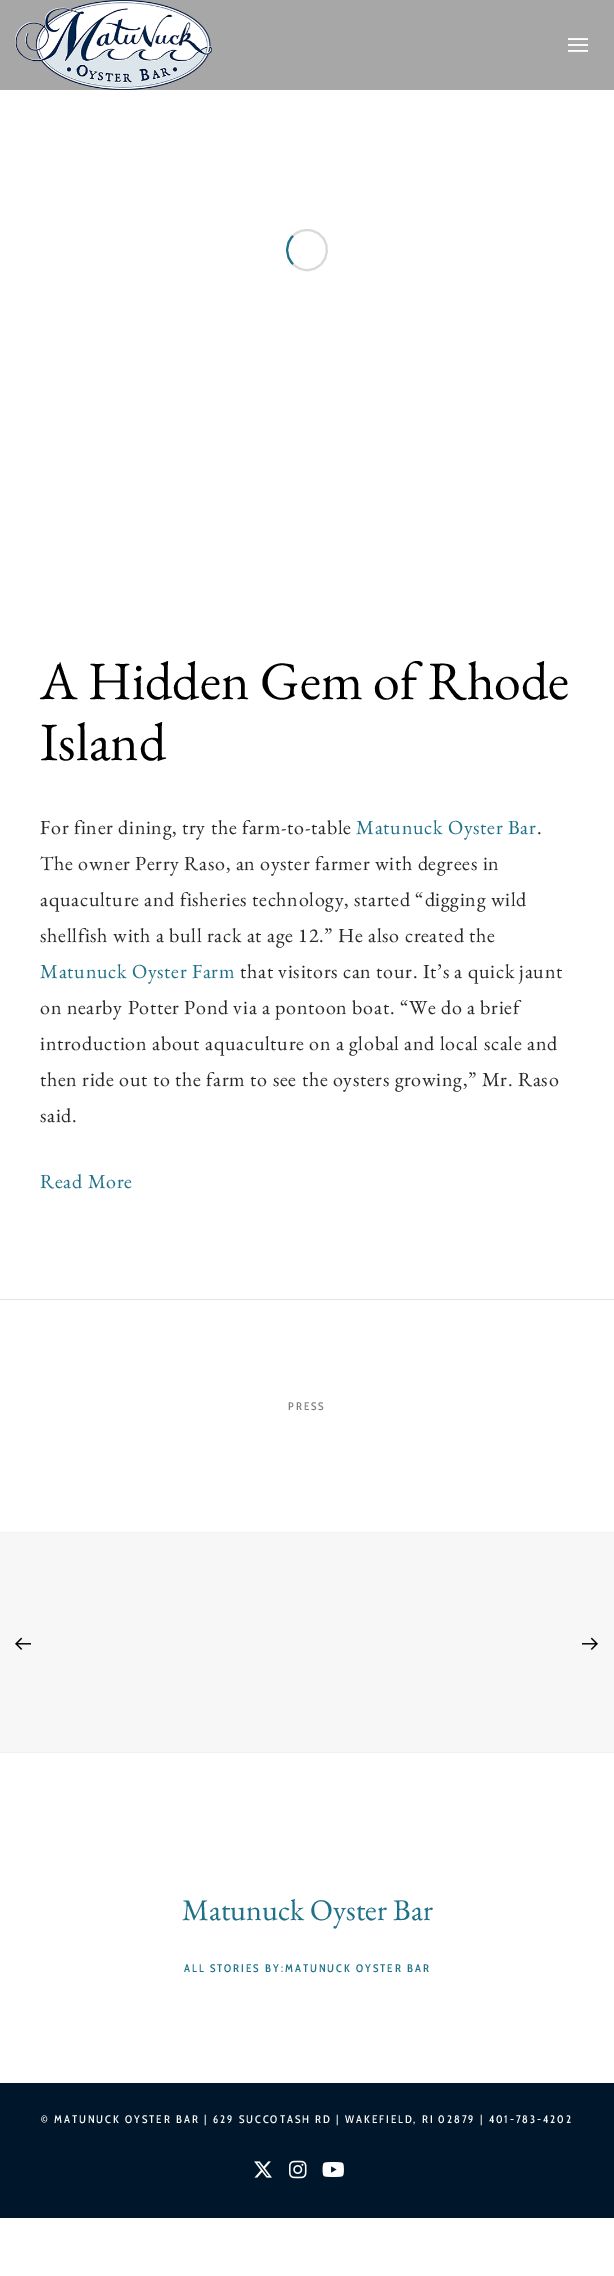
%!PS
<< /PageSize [614 2276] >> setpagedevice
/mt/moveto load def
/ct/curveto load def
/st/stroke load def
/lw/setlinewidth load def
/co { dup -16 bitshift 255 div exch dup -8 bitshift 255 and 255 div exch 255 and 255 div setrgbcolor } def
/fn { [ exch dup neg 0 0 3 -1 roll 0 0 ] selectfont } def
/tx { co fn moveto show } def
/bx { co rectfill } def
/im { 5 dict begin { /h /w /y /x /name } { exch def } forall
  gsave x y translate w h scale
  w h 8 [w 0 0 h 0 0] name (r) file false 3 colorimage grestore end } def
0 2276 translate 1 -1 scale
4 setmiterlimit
0 0 614 2276 16#FFFFFF bx
0 0 614 90 16#A7A7A7 bx
(media/1.raw) 15 0 197 90 im
(media/2.raw) 568 38 20 14 im
16#D9D9D9 co
2 lw
293 236 mt 297.5 231 304.5 229 311 230.5 ct 334.5 235 331 270 307 270 ct 301.5 270 296.5 268 293 264 ct st
16#1F7089 co
293 264 mt 285 256.5 285 243.5 293 236 ct st
0 1299 614 1 16#E4E4E4 bx
0 1533 614 219 16#F7F7F7 bx
0 1532 614 1 16#F2F2F2 bx
0 1752 614 1 16#F2F2F2 bx
(media/3.raw) 15 1637 16 13 im
(media/4.raw) 582 1637 16 13 im
0 2083 614 135 16#00172B bx
(media/5.raw) 254 2161 18 17 im
(media/6.raw) 289 2160 18 19 im
(media/7.raw) 322 2162 22 15 im
(A Hidden Gem of Rhode) 40 699 /EBGaramond-Regular 54 16#000000 tx
(Island) 40 760 /EBGaramond-Regular 54 16#000000 tx
/EBGaramond-Regular 20 fn
16#282828 co
40 834 mt .7 0 (For finer dining, try the farm-to-table) ashow
16#1F7089 co
356 834 mt .7 0 (Matunuck Oyster Bar) ashow
16#282828 co
537 834 mt .7 0 (.) ashow
40 870 mt .7 0 (The owner Perry Raso, an oyster farmer with degrees in) ashow
40 906 mt .7 0 (aquaculture and fisheries technology, started “digging wild) ashow
40 942 mt .7 0 (shellfish with a bull rack at age 12.” He also created the) ashow
16#1F7089 co
40 978 mt .7 0 (Matunuck Oyster Farm) ashow
16#282828 co
240 978 mt .7 0 (that visitors can tour. It’s a quick jaunt) ashow
40 1014 mt .7 0 (on nearby Potter Pond via a pontoon boat. “We do a brief) ashow
40 1050 mt .7 0 (introduction about aquaculture on a global and local scale and) ashow
40 1086 mt .7 0 (then ride out to the farm to see the oysters growing,” Mr. Raso) ashow
40 1122 mt .7 0 (said.) ashow
16#1F7089 co
40 1188 mt .7 0 (Read More) ashow
/CabinCondensed-Medium 11 fn
16#7E7E7E co
288 1410 mt 2 0 (PRESS) ashow
(Matunuck Oyster Bar) 182 1920 /EBGaramond-Regular 30 16#1F7089 tx
/CabinCondensed-Medium 11 fn
184 1972 mt 2 0 (ALL STORIES BY:MATUNUCK OYSTER BAR) ashow
16#FCFCFC co
41 2123 mt 2 0 (© MATUNUCK OYSTER BAR |) ashow
213 2123 mt 2 0 (629 SUCCOTASH RD | WAKEFIELD, RI 02879) ashow
480 2123 mt 2 0 (| 401-783-4202) ashow
showpage
